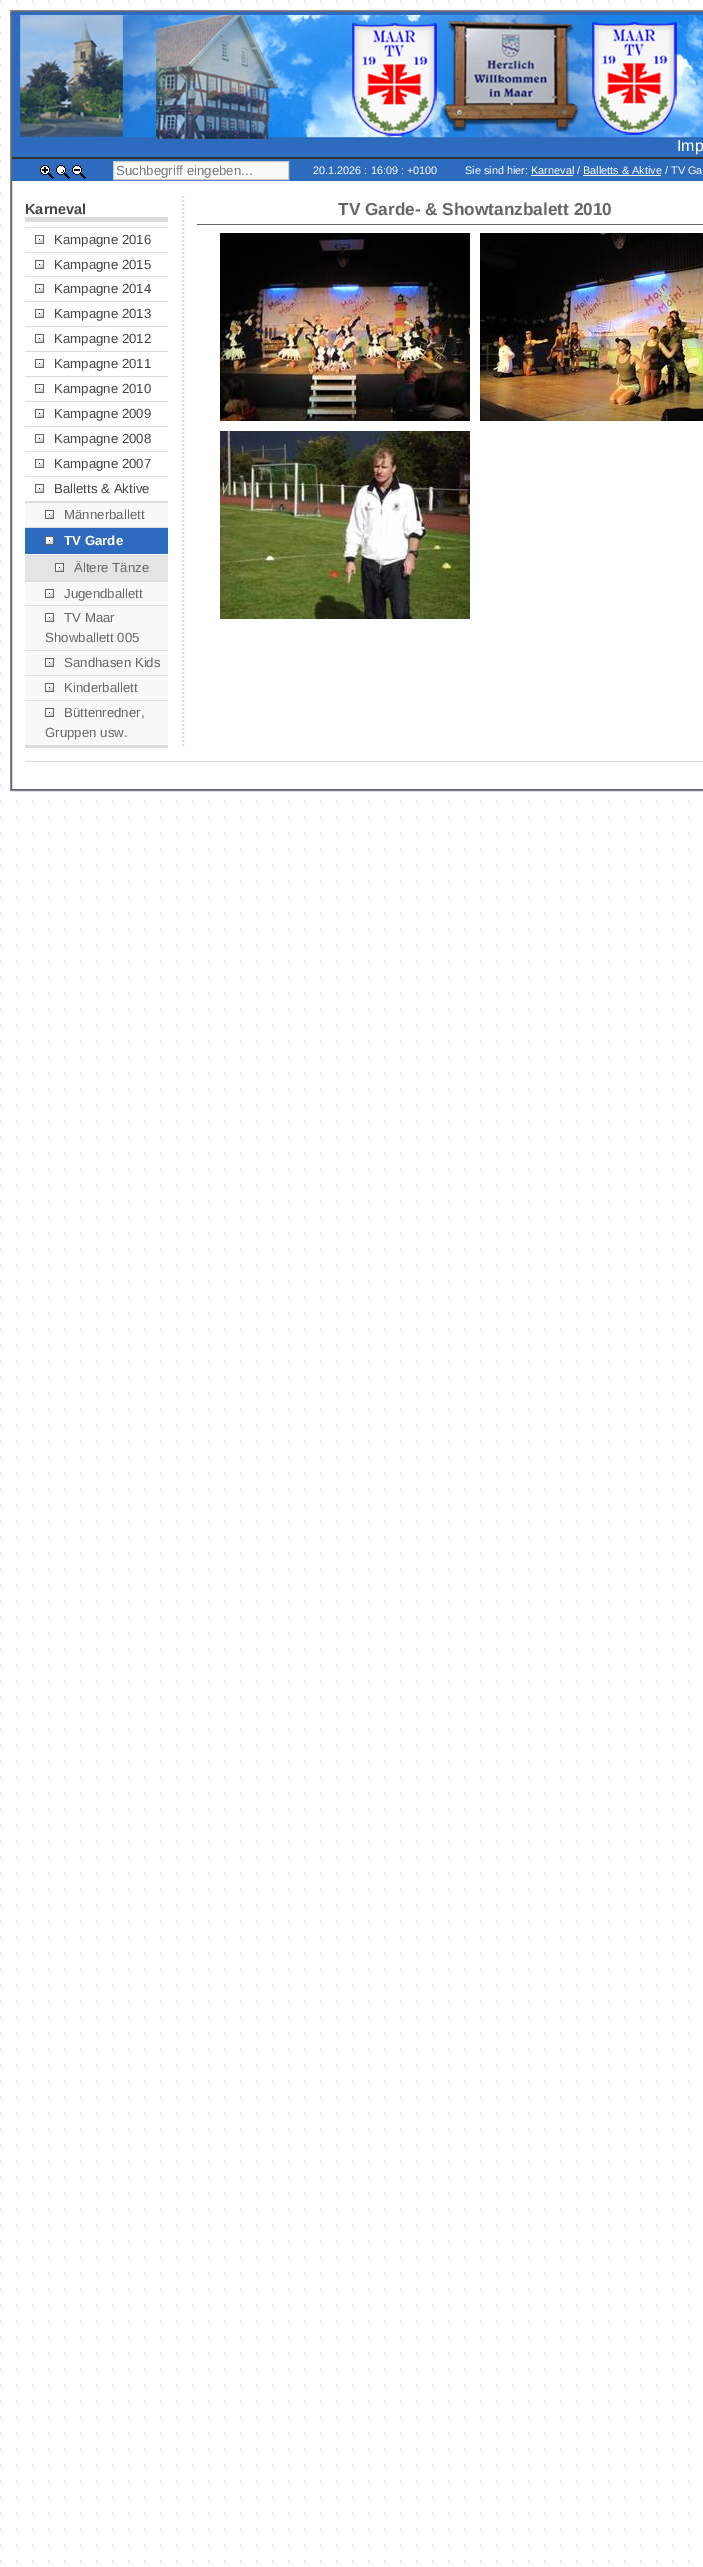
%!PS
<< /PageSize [703 2567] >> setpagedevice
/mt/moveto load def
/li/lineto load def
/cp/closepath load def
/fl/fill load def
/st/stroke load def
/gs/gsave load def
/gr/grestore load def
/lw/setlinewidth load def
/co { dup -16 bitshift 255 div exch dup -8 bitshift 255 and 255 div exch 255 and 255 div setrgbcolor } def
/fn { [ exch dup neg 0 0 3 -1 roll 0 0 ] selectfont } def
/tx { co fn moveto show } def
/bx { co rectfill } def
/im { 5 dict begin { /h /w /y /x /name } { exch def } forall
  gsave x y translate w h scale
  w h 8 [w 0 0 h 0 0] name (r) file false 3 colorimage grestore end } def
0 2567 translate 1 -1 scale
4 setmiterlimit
0 0 703 2567 16#FFFFFF bx
(media/1.raw) 0 1 689 2561 im
16#888899 co
10.5 10.5 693 780 rectstroke
16 193 673 593 16#FFFFFF bx
16#666677 co
11.5 11.5 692 778 rectstroke
12 12 691 145 16#2D6BBE bx
(media/2.raw) 12 15 691 140 im
12 157 691 2 16#333333 bx
12 159 691 22 16#2D6BBE bx
(media/3.raw) 40 165 14 14 im
(media/4.raw) 56 165 14 14 im
(media/5.raw) 72 165 14 14 im
16#FAFAFA co
113.5 161.5 mt 288.5 161.5 li 288.5 179.5 li 113.5 179.5 li cp gs fl gr
16#CCCCCC co
st
531 175 42 1 16#FFFFFF bx
583 175 78 1 16#FFFFFF bx
25 217 143 5 16#DDDDDD bx
25 227 143 1 16#DDDDDD bx
25 745 143 3 16#DDDDDD bx
25 252 143 1 16#DDDDDD bx
(media/6.raw) 35 235 9 9 im
25 276 143 1 16#DDDDDD bx
(media/6.raw) 35 260 9 9 im
25 301 143 1 16#DDDDDD bx
(media/6.raw) 35 284 9 9 im
25 326 143 1 16#DDDDDD bx
(media/6.raw) 35 309 9 9 im
25 351 143 1 16#DDDDDD bx
(media/6.raw) 35 334 9 9 im
25 376 143 1 16#DDDDDD bx
(media/6.raw) 35 359 9 9 im
25 401 143 1 16#DDDDDD bx
(media/6.raw) 35 384 9 9 im
25 426 143 1 16#DDDDDD bx
(media/6.raw) 35 409 9 9 im
25 451 143 1 16#DDDDDD bx
(media/6.raw) 35 434 9 9 im
25 476 143 1 16#DDDDDD bx
(media/6.raw) 35 459 9 9 im
25 501 143 2 16#DDDDDD bx
(media/6.raw) 35 484 9 9 im
25 503 143 24 16#F8F8F8 bx
25 527 143 1 16#DDDDDD bx
(media/6.raw) 45 510 9 9 im
25 528 143 26 16#2D6BBE bx
(media/6.raw) 45 536 9 9 im
25 555 143 1 16#DDDDDD bx
25 580 143 2 16#DDDDDD bx
25 556 143 24 16#E4E4E4 bx
(media/6.raw) 55 563 9 9 im
25 582 143 23 16#F8F8F8 bx
25 605 143 1 16#DDDDDD bx
(media/6.raw) 45 589 9 9 im
25 606 143 44 16#F8F8F8 bx
25 650 143 1 16#DDDDDD bx
(media/6.raw) 45 613 9 9 im
25 651 143 24 16#F8F8F8 bx
25 675 143 1 16#DDDDDD bx
(media/6.raw) 45 658 9 9 im
25 676 143 24 16#F8F8F8 bx
25 700 143 1 16#DDDDDD bx
(media/6.raw) 45 683 9 9 im
25 701 143 44 16#F8F8F8 bx
(media/6.raw) 45 708 9 9 im
16#DDDDDD co
2 lw
[2 2] 0 setdash
183 196 mt 183 748 li st
197 224 506 1 16#666666 bx
(media/7.raw) 220 233 250 188 im
(media/8.raw) 480 233 223 188 im
(media/9.raw) 220 431 250 188 im
25 761 678 1 16#DDDDDD bx
(Imp) 677 151 /LiberationSans-Regular 16 16#FFFFFF tx
(Suchbegriff eingeben...) 116 175 /LiberationSans-Regular 13.25 16#777777 tx
(20.1.2026 : 16:09 : +0100) 313 174 /LiberationSans-Regular 10.9 16#FFFFFF tx
(Sie sind hier: Karneval / Balletts & Aktive / TV Ga) 465 174 /LiberationSans-Regular 10.9 16#FFFFFF tx
(Karneval) 25 214 /LiberationSans-Bold 14.5 16#444444 tx
(Kampagne 2016) 54 244 /LiberationSans-Regular 13.25 16#444444 tx
(Kampagne 2015) 54 269 /LiberationSans-Regular 13.25 16#444444 tx
(Kampagne 2014) 54 293 /LiberationSans-Regular 13.25 16#444444 tx
(Kampagne 2013) 54 318 /LiberationSans-Regular 13.25 16#444444 tx
(Kampagne 2012) 54 343 /LiberationSans-Regular 13.25 16#444444 tx
(Kampagne 2011) 54 368 /LiberationSans-Regular 13.25 16#444444 tx
(Kampagne 2010) 54 393 /LiberationSans-Regular 13.25 16#444444 tx
(Kampagne 2009) 54 418 /LiberationSans-Regular 13.25 16#444444 tx
(Kampagne 2008) 54 443 /LiberationSans-Regular 13.25 16#444444 tx
(Kampagne 2007) 54 468 /LiberationSans-Regular 13.25 16#444444 tx
(Balletts & Aktive) 54 493 /LiberationSans-Regular 13.25 16#444444 tx
(Männerballett) 64 519 /LiberationSans-Regular 13.25 16#666666 tx
(TV Garde) 64 545 /LiberationSans-Bold 13.25 16#FFFFFF tx
(Ältere Tänze) 74 572 /LiberationSans-Regular 13.25 16#666666 tx
(Jugendballett) 64 598 /LiberationSans-Regular 13.25 16#666666 tx
(TV Maar) 64 622 /LiberationSans-Regular 13.25 16#666666 tx
(Showballett 005) 45 642 /LiberationSans-Regular 13.25 16#666666 tx
(Sandhasen Kids) 64 667 /LiberationSans-Regular 13.25 16#666666 tx
(Kinderballett) 64 692 /LiberationSans-Regular 13.25 16#666666 tx
(Büttenredner,) 64 717 /LiberationSans-Regular 13.25 16#666666 tx
(Gruppen usw.) 45 737 /LiberationSans-Regular 13.25 16#666666 tx
(TV Garde- & Showtanzbalett 2010) 338 215 /LiberationSans-Bold 17.25 16#666666 tx
showpage
